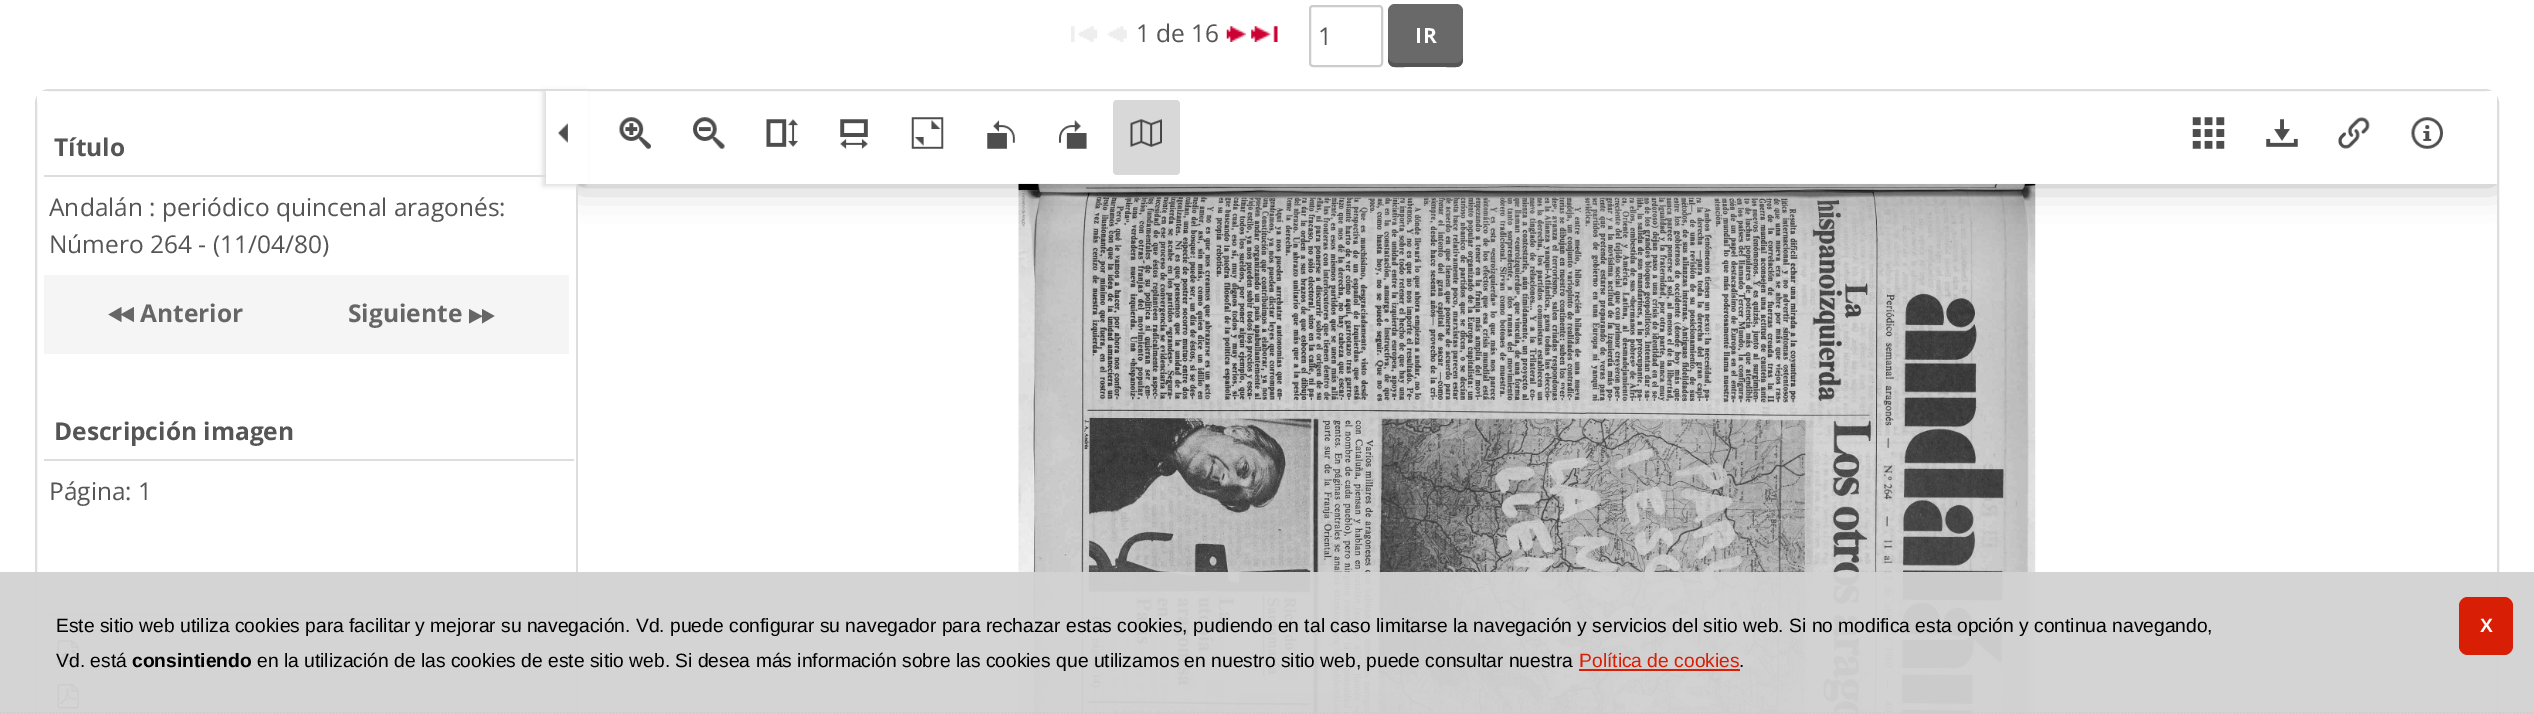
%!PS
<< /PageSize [2534 714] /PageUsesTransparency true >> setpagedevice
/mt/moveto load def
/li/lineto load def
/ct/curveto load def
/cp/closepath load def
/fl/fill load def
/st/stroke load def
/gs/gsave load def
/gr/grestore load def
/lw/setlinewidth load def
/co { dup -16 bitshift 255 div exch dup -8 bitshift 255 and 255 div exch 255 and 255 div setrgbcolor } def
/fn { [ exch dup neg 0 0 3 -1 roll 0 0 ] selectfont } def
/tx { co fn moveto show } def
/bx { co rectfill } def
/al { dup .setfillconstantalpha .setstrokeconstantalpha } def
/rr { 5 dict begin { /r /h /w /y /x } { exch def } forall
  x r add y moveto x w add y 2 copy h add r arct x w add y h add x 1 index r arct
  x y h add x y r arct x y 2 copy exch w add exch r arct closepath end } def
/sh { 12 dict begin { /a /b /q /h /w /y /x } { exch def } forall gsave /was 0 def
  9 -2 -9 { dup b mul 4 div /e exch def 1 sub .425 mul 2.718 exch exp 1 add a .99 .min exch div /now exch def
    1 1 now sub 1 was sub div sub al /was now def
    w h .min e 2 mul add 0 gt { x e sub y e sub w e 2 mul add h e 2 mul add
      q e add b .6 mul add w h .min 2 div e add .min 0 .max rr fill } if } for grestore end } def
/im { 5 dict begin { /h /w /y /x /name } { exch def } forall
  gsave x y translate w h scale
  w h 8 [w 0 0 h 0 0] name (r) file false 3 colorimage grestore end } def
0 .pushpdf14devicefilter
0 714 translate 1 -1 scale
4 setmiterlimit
0 0 2534 714 16#FFFFFF bx
(media/1.raw) 1071 26 27 16 im
(media/2.raw) 1107 26 20 16 im
(media/3.raw) 1226 26 20 16 im
(media/4.raw) 1251 26 27 16 im
16#CCCCCC co
2 lw
1310 6 72 60 3 rr st
16#696969 co
1388 4 75 63 7 rr fl
16#555555 co
1388 56 mt 1388 69 1393 67 1405 67 ct 1446 67 li 1458 67 1463 69 1463 56 ct 1463 60 1460 63 1456 63 ct 1395 63 li 1391 63 1388 60 1388 56 ct cp fl
16#DDDDDD co
36 90 2462 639 13 rr st
37 91 11 11 16#FFFFFF bx
576 184 2 530 16#DDDDDD bx
44 175 502 2 16#DDDDDD bx
44 275 525 79 16#F5F5F5 bx
16#666666 co
121.5 307 mt 121.5 314 li 134 307 li 134 322 li 121.5 315 li 121.5 322 li 108.5 314.5 li cp fl
482 309 mt 494.5 316 li 482 323.5 li 482 316.5 li 469 323.5 li 469 309 li 482 316 li cp fl
44 459 530 2 16#DDDDDD bx
44 614 530 2 16#DDDDDD bx
(media/5.raw) 57 640 22 25 im
(media/6.raw) 57 684 22 25 im
543 91 42 95 0 2.5 1 sh
546 91 42 93 16#FFFFFF bx
(media/7.raw) 558 123 10 20 im
2486 91 11 11 16#FFFFFF bx
(media/20.raw) 1018 183 1018 531 im
gs
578 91 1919 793 rectclip
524 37 mt 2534 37 li 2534 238 li 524 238 li cp 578 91 mt 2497 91 li 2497 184 li 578 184 li cp eoclip newpath
16#000000 co
578 91 1919 93 0 17.5 .3 sh
gr
(media/8.raw) 619 117 32 32 im
(media/9.raw) 693 117 32 32 im
(media/10.raw) 766 119 32 28 im
(media/11.raw) 840 119 28 30 im
(media/12.raw) 911 117 33 32 im
(media/13.raw) 987 120 28 29 im
(media/14.raw) 1059 120 28 29 im
16#D8D8D8 co
1113 100 67 75 4 rr fl
(media/15.raw) 1130 119 32 28 im
(media/16.raw) 2192 117 33 32 im
(media/17.raw) 2266 119 32 28 im
(media/18.raw) 2338 117 32 32 im
(media/19.raw) 2411 117 32 32 im
0.95 al
0 572 2534 142 16#D2D2D2 bx
1 al
16#CCCCCC co
1.8 lw
[1.75 1.75] 0 setdash
0 713 mt 2534 713 li st
1579 669 161 2 16#D81E05 bx
2459 597 54 58 9 rr fl
(1 de 16) 1136 42 /OpenSans-Regular 24.5 16#555555 tx
(1) 1318 45 /OpenSans-Regular 24.5 16#555555 tx
/OpenSans-Bold 21 fn
16#FFFFFF co
1415 43 mt 1 0 (IR) ashow
(Título) 54 156 /OpenSans-Bold 24.5 16#555555 tx
(Andalán : periódico quincenal aragonés:) 49 216 /OpenSans-Regular 24.5 16#555555 tx
(Número 264 - \(11/04/80\)) 49 253 /OpenSans-Regular 24.5 16#555555 tx
(Anterior) 140 322 /OpenSans-Bold 24.5 16#666666 tx
(Siguiente) 348 322 /OpenSans-Bold 24.5 16#666666 tx
(Descripción imagen) 54 440 /OpenSans-Bold 24.5 16#555555 tx
(Página: 1) 49 500 /OpenSans-Regular 24.5 16#555555 tx
(Este sitio web utiliza cookies para facilitar y mejorar su navegación. Vd. puede configurar su navegador para rechazar estas cookies, pudiendo en tal caso limitarse la navegación y servicios del sitio web. Si no modifica esta opción y continua navegando,) 56 632 /LiberationSans-Regular 19.25 16#000000 tx
(Vd. está) 56 667 /LiberationSans-Regular 19.25 16#000000 tx
(consintiendo) 132 667 /LiberationSans-Bold 19.25 16#000000 tx
(en la utilización de las cookies de este sitio web. Si desea más información sobre las cookies que utilizamos en nuestro sitio web, puede consultar nuestra) 257 667 /LiberationSans-Regular 19.25 16#000000 tx
(Política de cookies) 1579 667 /LiberationSans-Regular 19.25 16#D81E05 tx
(.) 1739 667 /LiberationSans-Regular 19.25 16#000000 tx
/LiberationSans-Bold 19.25 fn
16#FFFFFF co
2480 632 mt -1 0 (X) ashow
.poppdf14devicefilter showpage
